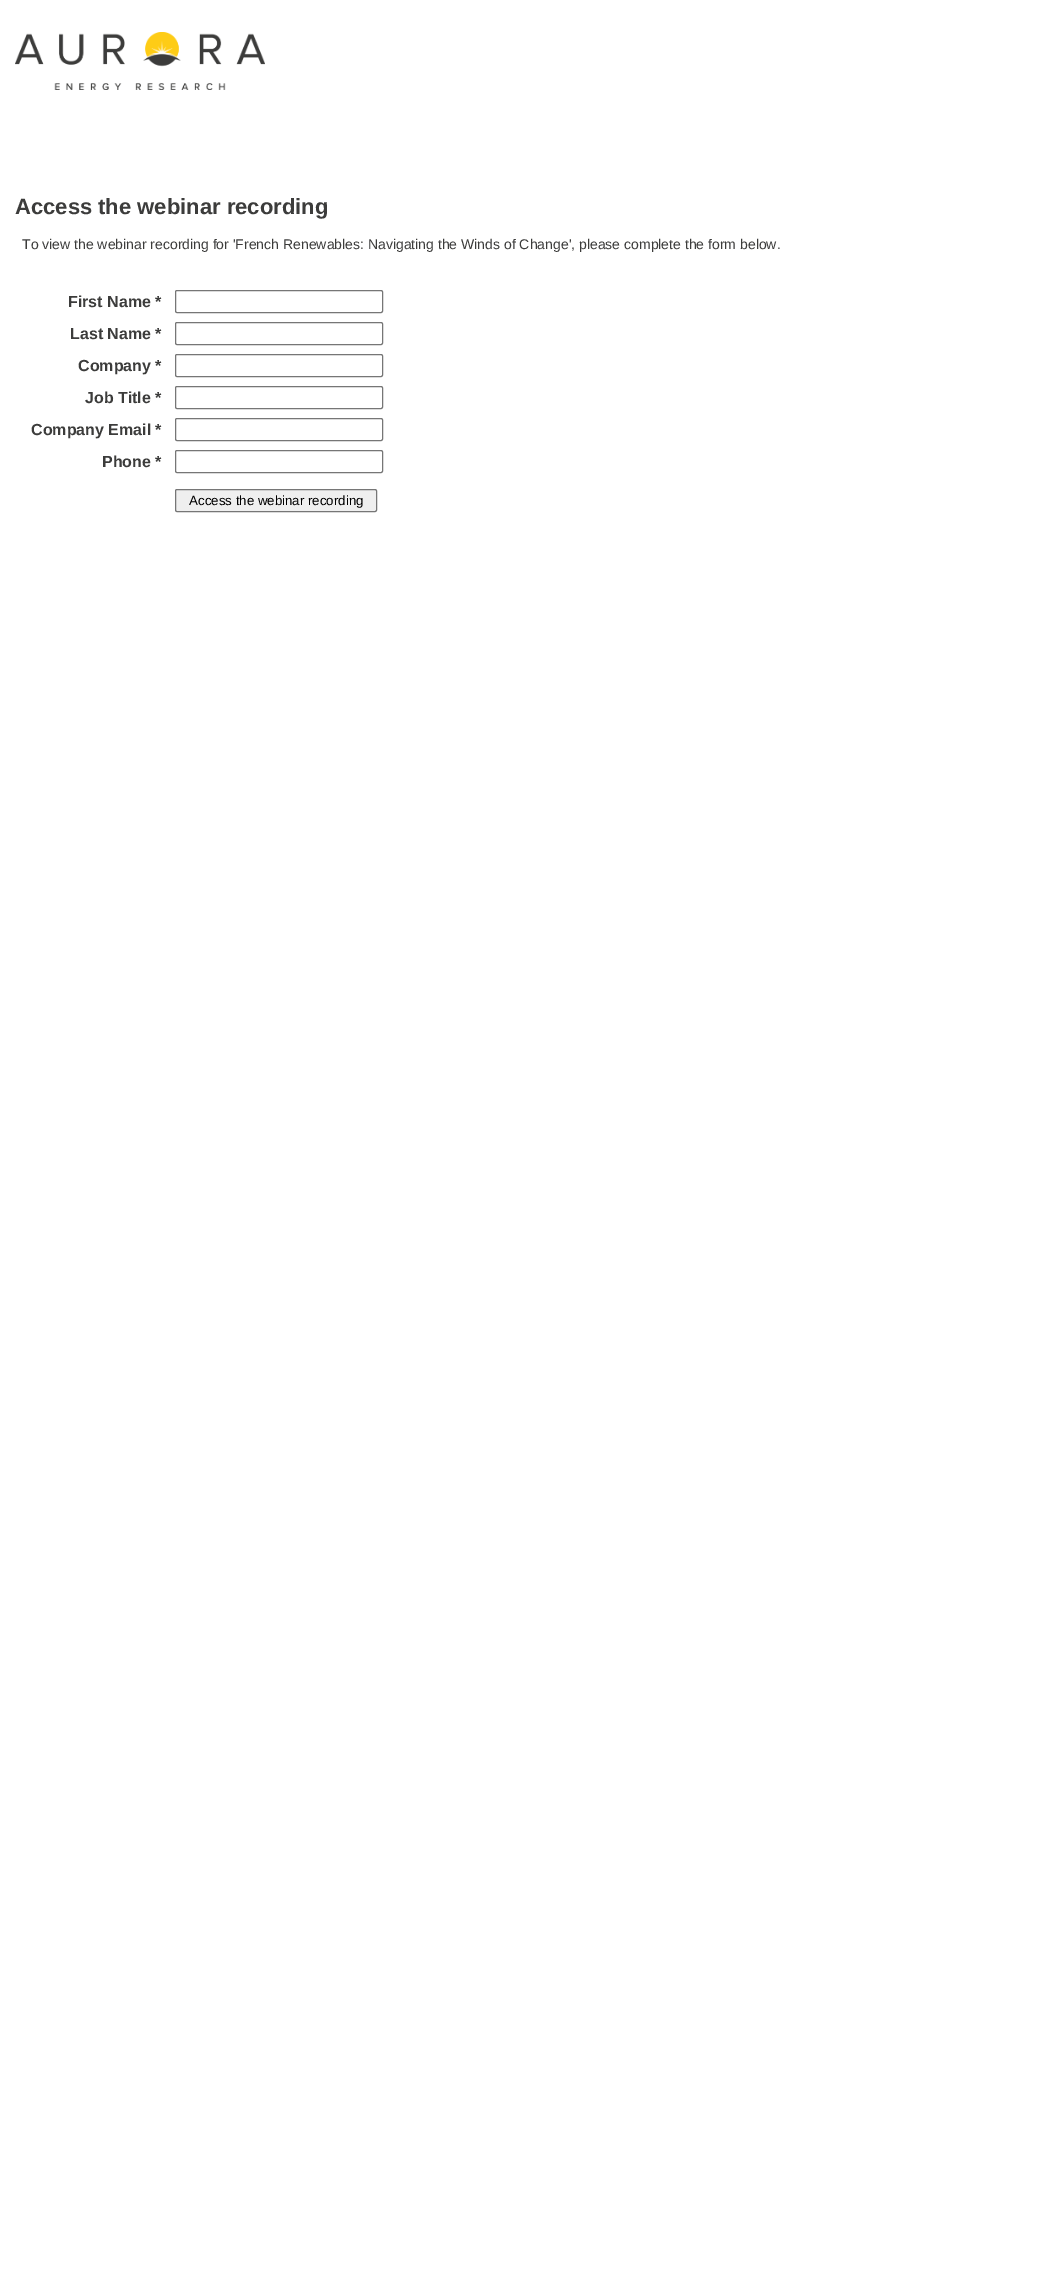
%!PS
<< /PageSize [1046 2281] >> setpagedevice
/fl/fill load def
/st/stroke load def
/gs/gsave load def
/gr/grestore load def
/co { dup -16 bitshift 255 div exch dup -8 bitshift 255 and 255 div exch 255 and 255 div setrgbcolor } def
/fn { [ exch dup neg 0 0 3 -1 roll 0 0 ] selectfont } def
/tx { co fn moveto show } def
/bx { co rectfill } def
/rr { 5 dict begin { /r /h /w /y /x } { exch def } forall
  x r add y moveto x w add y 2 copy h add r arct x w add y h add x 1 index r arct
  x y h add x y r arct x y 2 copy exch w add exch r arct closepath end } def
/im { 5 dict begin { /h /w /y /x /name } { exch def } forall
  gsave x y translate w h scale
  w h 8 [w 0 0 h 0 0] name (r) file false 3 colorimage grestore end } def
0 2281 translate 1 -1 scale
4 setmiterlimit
0 0 1046 2281 16#FFFFFF bx
(media/1.raw) 15 32 250 58 im
16#767676 co
175.5 290.5 207 22 1.5 rr st
175.5 322.5 207 22 1.5 rr st
175.5 354.5 207 22 1.5 rr st
175.5 386.5 207 22 1.5 rr st
175.5 418.5 207 22 1.5 rr st
175.5 450.5 207 22 1.5 rr st
16#EFEFEF co
175.5 489.5 201 22 1.5 rr gs fl gr
16#767676 co
st
(Access the webinar recording) 15 214 /LiberationSans-Bold 22 16#3C3C3B tx
(To view the webinar recording for 'French Renewables: Navigating the Winds of Change', please complete the form below.) 22 249 /LiberationSans-Regular 14 16#3C3C3B tx
(First Name *) 68 307 /LiberationSans-Bold 16 16#3C3C3B tx
(Last Name *) 70 339 /LiberationSans-Bold 16 16#3C3C3B tx
(Company *) 78 371 /LiberationSans-Bold 16 16#3C3C3B tx
(Job Title *) 85 403 /LiberationSans-Bold 16 16#3C3C3B tx
(Company Email *) 31 435 /LiberationSans-Bold 16 16#3C3C3B tx
(Phone *) 102 467 /LiberationSans-Bold 16 16#3C3C3B tx
(Access the webinar recording) 189 505 /LiberationSans-Regular 13.3 16#000000 tx
showpage
